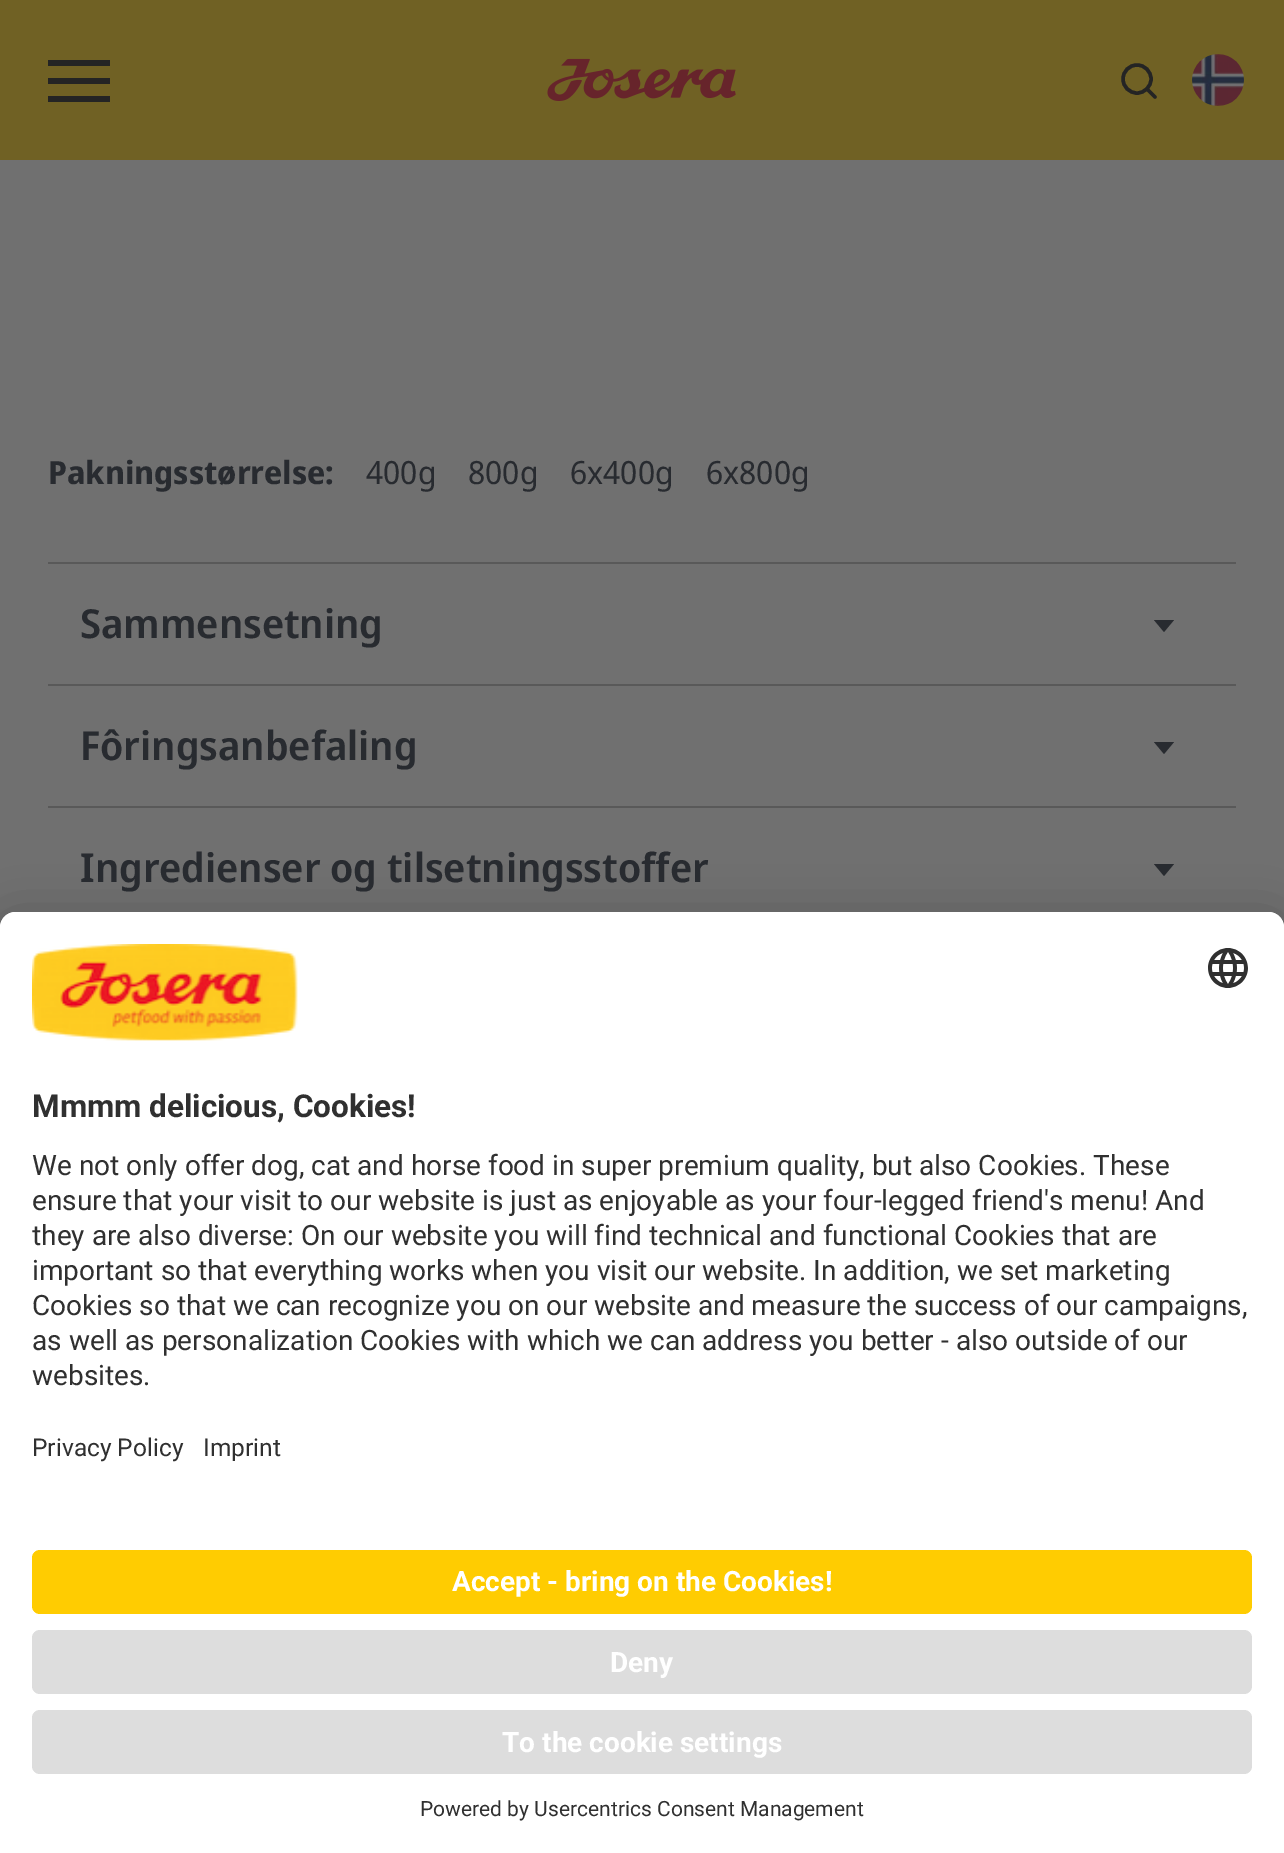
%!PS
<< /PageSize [1284 1853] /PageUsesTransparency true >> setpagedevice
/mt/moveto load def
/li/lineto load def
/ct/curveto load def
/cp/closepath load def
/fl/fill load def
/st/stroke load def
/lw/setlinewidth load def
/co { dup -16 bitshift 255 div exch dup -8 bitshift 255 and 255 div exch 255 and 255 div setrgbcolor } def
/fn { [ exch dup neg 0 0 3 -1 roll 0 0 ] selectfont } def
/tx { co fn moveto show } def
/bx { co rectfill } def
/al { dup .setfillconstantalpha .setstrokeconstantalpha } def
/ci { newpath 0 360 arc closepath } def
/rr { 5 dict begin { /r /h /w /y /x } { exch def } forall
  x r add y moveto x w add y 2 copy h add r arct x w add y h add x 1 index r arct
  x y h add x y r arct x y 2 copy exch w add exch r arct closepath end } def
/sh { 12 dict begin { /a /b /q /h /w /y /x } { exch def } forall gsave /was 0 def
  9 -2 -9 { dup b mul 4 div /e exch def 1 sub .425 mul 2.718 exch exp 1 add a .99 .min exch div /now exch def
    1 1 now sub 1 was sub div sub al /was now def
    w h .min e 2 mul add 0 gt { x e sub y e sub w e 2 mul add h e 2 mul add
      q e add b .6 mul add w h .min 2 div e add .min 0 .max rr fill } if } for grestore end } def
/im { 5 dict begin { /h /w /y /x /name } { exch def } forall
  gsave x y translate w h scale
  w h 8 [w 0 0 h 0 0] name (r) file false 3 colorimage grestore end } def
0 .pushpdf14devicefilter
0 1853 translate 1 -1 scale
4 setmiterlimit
0 0 1284 1853 16#707070 bx
0 0 1284 160 16#706124 bx
48 60 62 6 16#242424 bx
48 78 62 6 16#242424 bx
48 96 62 6 16#242424 bx
(media/1.raw) 547 58 189 43 im
3.5 lw
1137 79 14 ci st
1 setlinecap
1 setlinejoin
1155 97 mt 1147 89 li st
(media/2.raw) 1192 54 52 52 im
48 562 1188 2 16#595959 bx
48 684 1188 2 16#595959 bx
16#282B30 co
1174 620 mt 1164 632 li 1154 620 li cp fl
48 806 1188 2 16#595959 bx
16#282B30 co
1174 742 mt 1164 754 li 1154 742 li cp fl
1174 864 mt 1164 876 li 1154 864 li cp fl
16#000000 co
0 952 1284 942 16 28 .3 sh
0 922 1284 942 16 26 .22 sh
16#FFFFFF co
16 912 mt 1268 912 li 1277 912 1284 919 1284 928 ct 1284 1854 li 0 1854 li 0 928 li 0 919 7 912 16 912 ct cp fl
16 912 mt 1268 912 li 1277 912 1284 919 1284 928 ct 1284 1526 li 0 1526 li 0 928 li 0 919 7 912 16 912 ct cp fl
(media/3.raw) 32 944 266 97 im
(media/4.raw) 1208 948 40 40 im
16#FFCC01 co
32 1550 1220 64 8 rr fl
16#DDDDDD co
32 1630 1220 64 8 rr fl
32 1710 1220 64 8 rr fl
(Pakningsstørrelse:) 48 484 /NotoSansDisplay-Bold 32 16#282B30 tx
(400g) 366 484 /NotoSansDisplay-Regular 32 16#282B30 tx
(800g) 468 484 /NotoSansDisplay-Regular 32 16#282B30 tx
(6x400g) 570 484 /NotoSansDisplay-Regular 32 16#282B30 tx
(6x800g) 706 484 /NotoSansDisplay-Regular 32 16#282B30 tx
(Sammensetning) 80 638 /NotoSansDisplay-SemiBold 40 16#282B30 tx
(Fôringsanbefaling) 80 760 /NotoSansDisplay-SemiBold 40 16#282B30 tx
(Ingredienser og tilsetningsstoffer) 80 882 /NotoSansDisplay-SemiBold 40 16#282B30 tx
(Mmmm delicious, Cookies!) 32 1117 /Roboto-Bold 31.5 16#303030 tx
(We not only offer dog, cat and horse food in super premium quality, but also Cookies. These) 32 1175 /Roboto-Regular 28 16#303030 tx
(ensure that your visit to our website is just as enjoyable as your four-legged friend's menu! And) 32 1210 /Roboto-Regular 28 16#303030 tx
(they are also diverse: On our website you will find technical and functional Cookies that are) 32 1245 /Roboto-Regular 28 16#303030 tx
(important so that everything works when you visit our website. In addition, we set marketing) 32 1280 /Roboto-Regular 28 16#303030 tx
(Cookies so that we can recognize you on our website and measure the success of our campaigns,) 32 1315 /Roboto-Regular 28 16#303030 tx
(as well as personalization Cookies with which we can address you better - also outside of our) 32 1350 /Roboto-Regular 28 16#303030 tx
(websites.) 32 1385 /Roboto-Regular 28 16#303030 tx
(Privacy Policy) 32 1456 /Roboto-Regular 24.5 16#303030 tx
(Imprint) 203 1456 /Roboto-Regular 24.5 16#303030 tx
(Accept - bring on the Cookies!) 452 1591 /Roboto-Bold 28 16#FFFFFF tx
(Deny) 610 1672 /Roboto-Bold 28 16#FFFFFF tx
(To the cookie settings) 502 1752 /Roboto-Bold 28 16#FFFFFF tx
(Powered by Usercentrics Consent Management) 420 1816 /Roboto-Regular 21 16#303030 tx
.poppdf14devicefilter showpage
